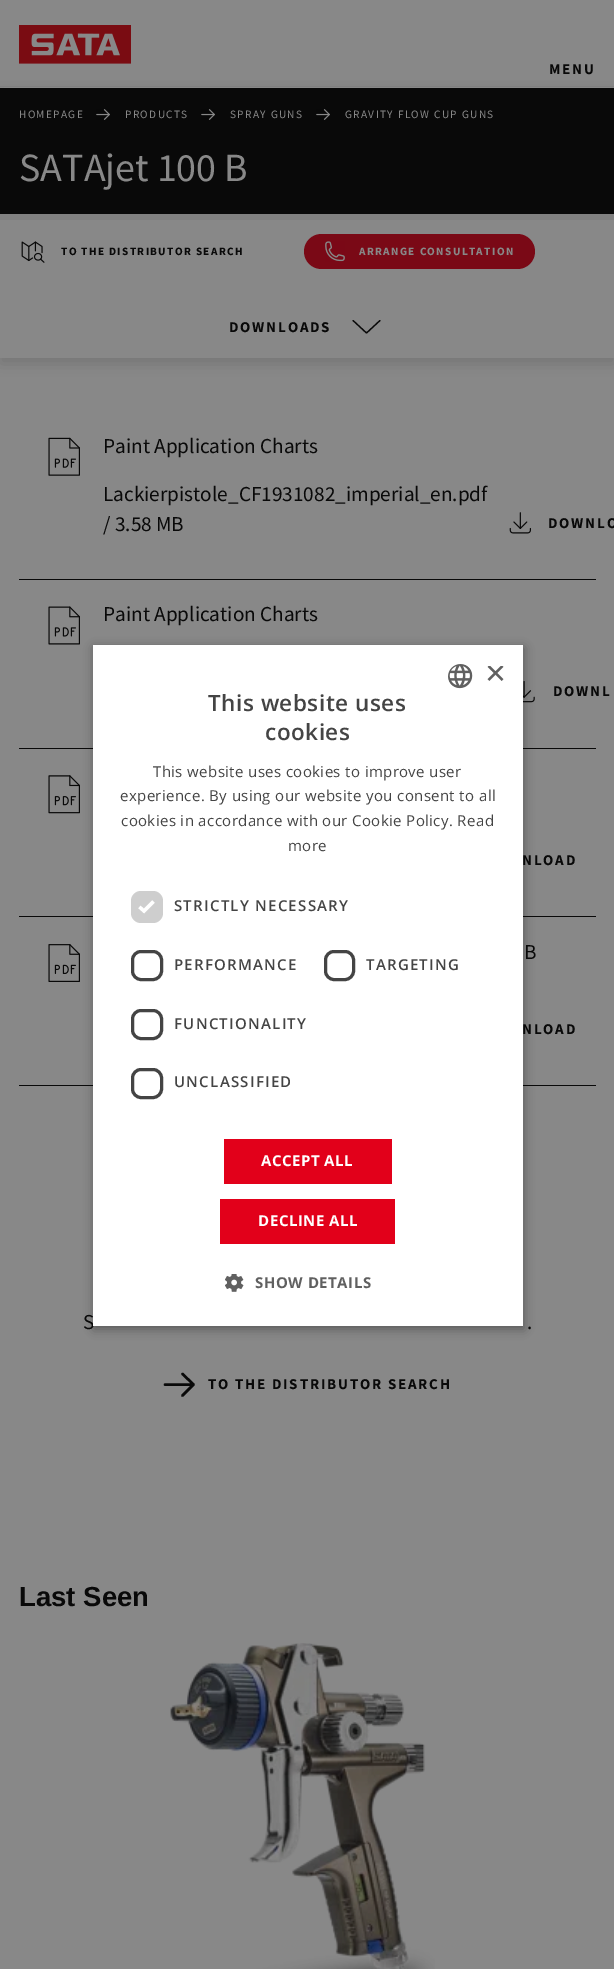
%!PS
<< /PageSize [614 1969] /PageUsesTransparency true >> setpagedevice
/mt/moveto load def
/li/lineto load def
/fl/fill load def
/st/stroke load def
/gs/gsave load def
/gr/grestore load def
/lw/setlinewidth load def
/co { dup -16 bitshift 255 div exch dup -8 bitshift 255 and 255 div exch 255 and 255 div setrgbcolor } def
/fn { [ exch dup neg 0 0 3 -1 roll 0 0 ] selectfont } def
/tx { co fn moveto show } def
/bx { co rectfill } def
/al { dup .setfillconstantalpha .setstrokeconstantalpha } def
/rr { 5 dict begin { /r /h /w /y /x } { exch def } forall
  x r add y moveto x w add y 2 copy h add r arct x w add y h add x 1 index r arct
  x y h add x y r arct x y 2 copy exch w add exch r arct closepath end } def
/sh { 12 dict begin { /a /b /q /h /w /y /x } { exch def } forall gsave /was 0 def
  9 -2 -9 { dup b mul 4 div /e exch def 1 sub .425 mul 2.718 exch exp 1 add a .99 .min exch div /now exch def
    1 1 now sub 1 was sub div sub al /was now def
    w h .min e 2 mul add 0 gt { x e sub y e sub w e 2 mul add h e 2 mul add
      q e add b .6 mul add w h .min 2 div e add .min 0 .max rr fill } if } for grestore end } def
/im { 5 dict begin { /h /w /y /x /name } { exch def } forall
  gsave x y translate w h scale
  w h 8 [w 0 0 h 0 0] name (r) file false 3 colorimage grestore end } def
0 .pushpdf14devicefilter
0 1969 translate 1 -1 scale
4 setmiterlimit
0 0 614 1969 16#888888 bx
16#090909 co
0 94 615 270 0 7.5 .15 sh
4 86 607 2 16#888888 bx
(media/1.raw) 19 25 112 39 im
0 86 614 1 16#808080 bx
0 88 614 126 16#090909 bx
(media/2.raw) 96 109 14 11 im
(media/2.raw) 201 109 14 11 im
(media/2.raw) 316 109 14 11 im
0 220 614 138 16#888888 bx
0 214 614 6 16#808080 bx
(media/3.raw) 21 241 24 22 im
16#7A0916 co
304 234 231 35 17.5 rr fl
(media/4.raw) 325 241 20 21 im
16#090909 co
1.2 lw
1 setlinecap
1 setlinejoin
353 320.5 mt 366.5 333 li 380 320.5 li st
19 579 577 1 16#090909 bx
(media/5.raw) 48 437 32 39 im
(media/6.raw) 509 512 22 22 im
19 748 577 1 16#090909 bx
(media/7.raw) 48 606 32 39 im
(media/8.raw) 523 681 12 22 im
19 916 577 1 16#090909 bx
(media/9.raw) 48 775 32 39 im
19 1085 577 1 16#090909 bx
(media/10.raw) 48 944 32 38 im
2.5 lw
165 1384.5 mt 193.5 1384.5 li 182.5 1374 mt 193.5 1384.5 li 182.5 1395.5 li st
(media/11.raw) 170 1643 265 326 im
16#000000 co
94 648 430 681 0 5 .35 sh
/SourceSansPro-Bold 15 fn
16#090909 co
549 74 mt 1.8 0 (MENU) ashow
/SourceSansPro-Regular 11.25 fn
16#888888 co
19 118 mt 1.35 0 (HOMEPAGE) ashow
125 118 mt 1.35 0 (PRODUCTS) ashow
230 118 mt 1.35 0 (SPRAY GUNS) ashow
345 118 mt 1.35 0 (GRAVITY FLOW CUP GUNS) ashow
(SATAjet 100 B) 19 181 /SourceSansPro-Regular 40 16#888888 tx
/SourceSansPro-Bold 11.25 fn
16#090909 co
61 255 mt 1.35 0 (TO THE DISTRIBUTOR SEARCH) ashow
16#888888 co
359 255 mt 1.35 0 (ARRANGE CONSULTATION) ashow
/SourceSansPro-Bold 15 fn
16#090909 co
229 332 mt 1.8 0 (DOWNLOADS) ashow
(Paint Application Charts) 103 453 /SourceSansPro-Regular 21.25 16#090909 tx
(Lackierpistole_CF1931082_imperial_en.pdf) 103 501 /SourceSansPro-Regular 21.25 16#090909 tx
(/ 3.58 MB) 103 531 /SourceSansPro-Regular 21.25 16#090909 tx
/SourceSansPro-Bold 15 fn
548 528 mt 1.8 0 (DOWNLO) ashow
(Paint Application Charts) 103 621 /SourceSansPro-Regular 21.25 16#090909 tx
/SourceSansPro-Bold 15 fn
553 696 mt 1.8 0 (DOWNL) ashow
522 865 mt 1.8 0 (NLOAD) ashow
(B) 524 959 /SourceSansPro-Regular 21.25 16#090909 tx
/SourceSansPro-Bold 15 fn
522 1034 mt 1.8 0 (NLOAD) ashow
(S) 83 1329 /SourceSansPro-Regular 21.25 16#090909 tx
(.) 527 1329 /SourceSansPro-Regular 21.25 16#090909 tx
/SourceSansPro-Bold 15 fn
208 1389 mt 1.8 0 (TO THE DISTRIBUTOR SEARCH) ashow
(Last Seen) 19 1606 /LiberationSans-Bold 27.5 16#090909 tx
93 645 430 681 16#FFFFFF bx
(media/12.raw) 448 664 25 25 im
gs
485 666 19 19 rectclip
(×) 485 685 /LiberationSans-Regular 36 16#606060 tx
gr
/OpenSans-SemiBold 22.5 fn
16#444444 co
208 711 mt .5 0 (This website uses) ashow
265 740 mt .5 0 (cookies) ashow
/OpenSans-Regular 15 fn
153 777 mt .38 0 (This website uses cookies to improve user) ashow
120 801 mt .38 0 (experience. By using our website you consent to all) ashow
121 826 mt .38 0 (cookies in accordance with our Cookie Policy. Read) ashow
288 851 mt .38 0 (more) ashow
16#CECECE co
131 891 32 32 10 rr fl
16#FFFFFF co
3.3 lw
0 setlinecap
0 setlinejoin
139.5 907 mt 144 911 li 153.5 901.5 li st
/OpenSans-SemiBold 15 fn
16#444444 co
174 911 mt 1.25 0 (STRICTLY NECESSARY) ashow
3 lw
132.5 951.5 29 28 8.5 rr st
174 970 mt 1.25 0 (PERFORMANCE) ashow
325.5 951.5 28 28 8.5 rr st
366 970 mt 1.25 0 (TARGETING) ashow
132.5 1010.5 29 28 8.5 rr st
174 1029 mt 1.25 0 (FUNCTIONALITY) ashow
132.5 1069.5 29 28 8.5 rr st
174 1087 mt 1.25 0 (UNCLASSIFIED) ashow
224 1139 168 45 16#E2001A bx
/OpenSans-Bold 15 fn
16#FFFFFF co
261 1166 mt .5 0 (ACCEPT ALL) ashow
220 1199 175 45 16#E2001A bx
16#FFFFFF co
258 1226 mt .5 0 (DECLINE ALL) ashow
(media/13.raw) 225 1274 19 18 im
16#606060 co
255 1288 mt .5 0 (SHOW DETAILS) ashow
.poppdf14devicefilter showpage
